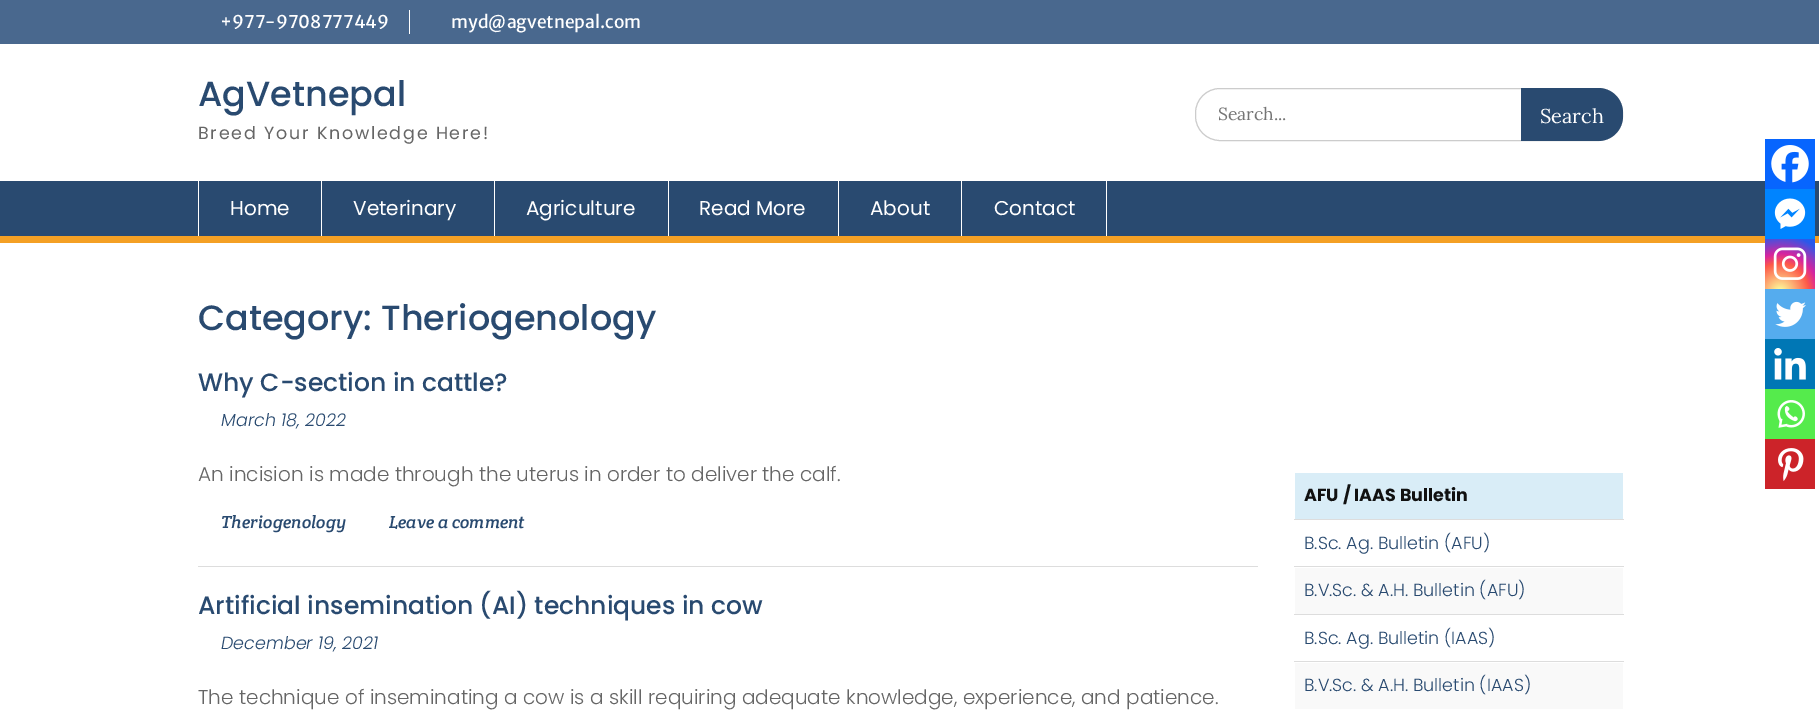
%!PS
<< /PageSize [1819 727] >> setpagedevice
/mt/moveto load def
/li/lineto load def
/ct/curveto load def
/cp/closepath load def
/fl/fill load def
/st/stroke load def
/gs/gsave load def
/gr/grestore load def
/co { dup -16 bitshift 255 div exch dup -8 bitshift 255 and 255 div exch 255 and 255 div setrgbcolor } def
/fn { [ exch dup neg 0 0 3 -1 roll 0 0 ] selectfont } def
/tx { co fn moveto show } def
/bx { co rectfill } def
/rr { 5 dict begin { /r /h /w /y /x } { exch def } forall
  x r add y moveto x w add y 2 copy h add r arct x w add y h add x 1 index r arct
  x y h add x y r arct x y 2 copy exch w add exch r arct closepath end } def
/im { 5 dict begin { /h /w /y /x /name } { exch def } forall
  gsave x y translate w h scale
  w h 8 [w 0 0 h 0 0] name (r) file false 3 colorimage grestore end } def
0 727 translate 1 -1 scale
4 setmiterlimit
0 0 1819 727 16#FFFFFF bx
0 0 1819 44 16#49688E bx
409 10 1 24 16#FFFFFF bx
16#CCCCCC co
1195.5 88.5 427 52 24.5 rr st
16#294A70 co
1521 88 mt 1598 88 li 1612 88 1623 99 1623 113 ct 1623 116 li 1623 130 1612 141 1598 141 ct 1521 141 li cp fl
0 181 1819 55 16#294A70 bx
0 236 1819 7 16#F4A024 bx
321 181 1 55 16#FFFFFF bx
198 181 1 55 16#FFFFFF bx
494 181 1 55 16#FFFFFF bx
668 181 1 55 16#FFFFFF bx
838 181 1 55 16#FFFFFF bx
961 181 1 55 16#FFFFFF bx
1106 181 1 55 16#FFFFFF bx
1765 139 50 50 16#0765FE bx
(media/1.raw) 1771 145 38 38 im
1765 189 50 50 16#0084FF bx
(media/2.raw) 1774 198 32 31 im
gs 1765 239 mt 1815 239 li 1815 289 li 1765 289 li cp clip newpath 1780 292 translate 64 64 scale
<< /ShadingType 3 /ColorSpace /DeviceRGB /Coords [0 0 0 0 0 1] /Extend [true true] /Function << /FunctionType 3 /Domain [0 1] /Functions [<< /FunctionType 2 /Domain [0 1] /C0 [.992 .957 .592] /C1 [.992 .957 .592] /N 1 >> << /FunctionType 2 /Domain [0 1] /C0 [.992 .957 .592] /C1 [.992 .349 .286] /N 1 >> << /FunctionType 2 /Domain [0 1] /C0 [.992 .349 .286] /C1 [.839 .141 .624] /N 1 >> << /FunctionType 2 /Domain [0 1] /C0 [.839 .141 .624] /C1 [.157 .353 .922] /N 1 >> << /FunctionType 2 /Domain [0 1] /C0 [.157 .353 .922] /C1 [.157 .353 .922] /N 1 >>] /Bounds [.05 .45 .6 .9] /Encode [0 1 0 1 0 1 0 1 0 1] >> >> shfill gr
(media/3.raw) 1773 247 34 33 im
1765 289 50 50 16#55ACEE bx
(media/4.raw) 1775 301 31 26 im
1765 339 50 50 16#0077B5 bx
(media/5.raw) 1774 348 32 32 im
1765 389 50 50 16#55EB4C bx
(media/6.raw) 1777 400 28 28 im
1765 439 50 50 16#CC2329 bx
(media/7.raw) 1778 448 26 33 im
198 566 1060 1 16#DDDDDD bx
1295 473 328 46 16#D9EDF7 bx
1294 519 330 1 16#DDDDDD bx
1295 568 328 46 16#F9F9F9 bx
1294 566 330 1 16#DDDDDD bx
1294 614 330 1 16#DDDDDD bx
1295 663 328 46 16#F9F9F9 bx
1294 661 330 1 16#DDDDDD bx
(+977-9708777449) 220 28 /MerriweatherSans-Regular 17.5 16#FFFFFF tx
(myd@agvetnepal.com) 451 28 /MerriweatherSans-Regular 17.5 16#FFFFFF tx
(AgVetnepal) 198 106 /Poppins-Medium 35 16#294A70 tx
/Poppins-Regular 17.5 fn
16#666666 co
198 139 mt 1.75 0 (Breed Your Knowledge Here!) ashow
(Search...) 1218 120 /Lora-Regular 17.5 16#757575 tx
(Search) 1540 123 /Lora-Regular 20 16#FFFFFF tx
(Home) 230 215 /Poppins-Regular 20 16#FFFFFF tx
(Veterinary) 353 215 /Poppins-Regular 20 16#FFFFFF tx
(Agriculture) 526 215 /Poppins-Regular 20 16#FFFFFF tx
(Read More) 699 215 /Poppins-Regular 20 16#FFFFFF tx
(About) 870 215 /Poppins-Regular 20 16#FFFFFF tx
(Contact) 994 215 /Poppins-Regular 20 16#FFFFFF tx
(Category: Theriogenology) 198 330 /Poppins-Medium 35 16#294A70 tx
(Why C-section in cattle?) 198 391 /Poppins-Medium 25 16#294A70 tx
(March 18, 2022) 221 426 /Poppins-LightItalic 17.5 16#294A70 tx
(An incision is made through the uterus in order to deliver the calf.) 198 481 /Poppins-Light 20 16#666666 tx
(Theriogenology) 221 528 /CreteRound-Italic 17.5 16#294A70 tx
(Leave a comment) 389 528 /CreteRound-Italic 17.5 16#294A70 tx
(Artificial insemination \(AI\) techniques in cow) 198 614 /Poppins-Medium 25 16#294A70 tx
(December 19, 2021) 221 649 /Poppins-LightItalic 17.5 16#294A70 tx
(The technique of inseminating a cow is a skill requiring adequate knowledge, experience, and patience.) 198 704 /Poppins-Light 20 16#666666 tx
(AFU / IAAS Bulletin) 1304 501 /Poppins-Bold 17.5 16#111111 tx
(B.Sc. Ag. Bulletin \(AFU\)) 1304 549 /Poppins-Light 17.5 16#294A70 tx
(B.V.Sc. & A.H. Bulletin \(AFU\)) 1304 596 /Poppins-Light 17.5 16#294A70 tx
(B.Sc. Ag. Bulletin \(IAAS\)) 1304 644 /Poppins-Light 17.5 16#294A70 tx
(B.V.Sc. & A.H. Bulletin \(IAAS\)) 1304 691 /Poppins-Light 17.5 16#294A70 tx
showpage
